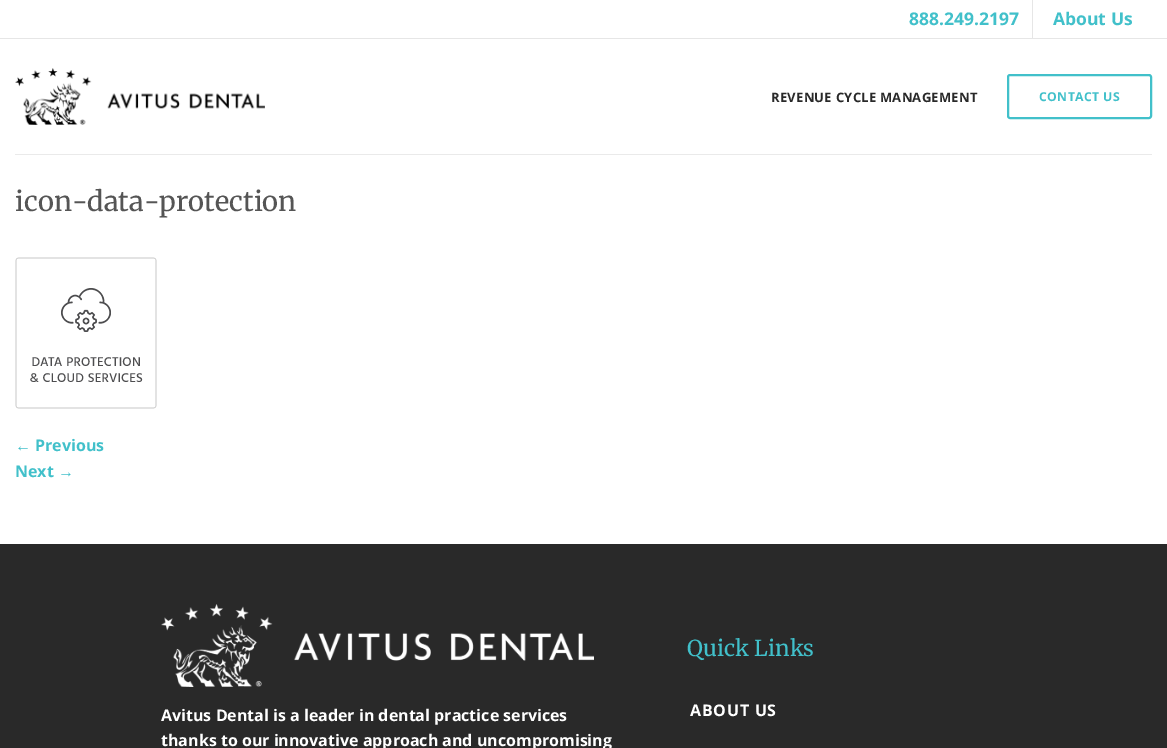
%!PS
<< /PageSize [1167 748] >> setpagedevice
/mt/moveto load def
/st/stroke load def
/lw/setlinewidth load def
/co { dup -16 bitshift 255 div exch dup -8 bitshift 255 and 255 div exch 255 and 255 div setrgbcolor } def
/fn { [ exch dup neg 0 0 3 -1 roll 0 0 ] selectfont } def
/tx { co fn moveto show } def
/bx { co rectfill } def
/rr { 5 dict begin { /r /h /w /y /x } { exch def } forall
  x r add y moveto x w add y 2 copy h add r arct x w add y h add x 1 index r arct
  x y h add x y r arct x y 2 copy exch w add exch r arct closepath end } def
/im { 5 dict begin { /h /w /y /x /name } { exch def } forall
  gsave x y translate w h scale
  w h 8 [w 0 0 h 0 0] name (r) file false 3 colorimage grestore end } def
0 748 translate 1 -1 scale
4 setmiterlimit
0 0 1167 748 16#FFFFFF bx
0 38 1167 1 16#E6E6E6 bx
1032 0 1 38 16#E6E6E6 bx
(media/1.raw) 15 68 250 57 im
16#41C0CA co
2 lw
1008 75 143 43 2 rr st
15 154 1137 1 16#EAEAEA bx
(media/2.raw) 15 257 142 152 im
0 544 1167 204 16#292929 bx
(media/3.raw) 161 604 433 83 im
(888.249.2197) 909 25 /OpenSans-Bold 17.5 16#41C0CA tx
(About Us) 1053 25 /OpenSans-Bold 17.5 16#41C0CA tx
/OpenSans-Bold 13 fn
16#292929 co
771 102 mt .25 0 (REVENUE CYCLE MANAGEMENT) ashow
/OpenSans-Bold 12.25 fn
16#41C0CA co
1039 101 mt .4 0 (CONTACT US) ashow
(icon-data-protection) 15 211 /Merriweather-Regular 27.25 16#555555 tx
(←) 15 451 /LiberationSans-Regular 16 16#41C0CA tx
(Previous) 35 451 /OpenSans-Bold 16 16#41C0CA tx
(Next) 15 477 /OpenSans-Bold 16 16#41C0CA tx
(→) 58 477 /LiberationSans-Regular 16 16#41C0CA tx
(Quick Links) 687 656 /Merriweather-Regular 22 16#41C0CA tx
/OpenSans-Bold 16 fn
16#FFFFFF co
690 716 mt .75 0 (ABOUT US) ashow
(Avitus Dental is a leader in dental practice services) 161 721 /OpenSans-Bold 16 16#FFFFFF tx
(thanks to our innovative approach and uncompromising) 161 746 /OpenSans-Bold 16 16#FFFFFF tx
showpage
